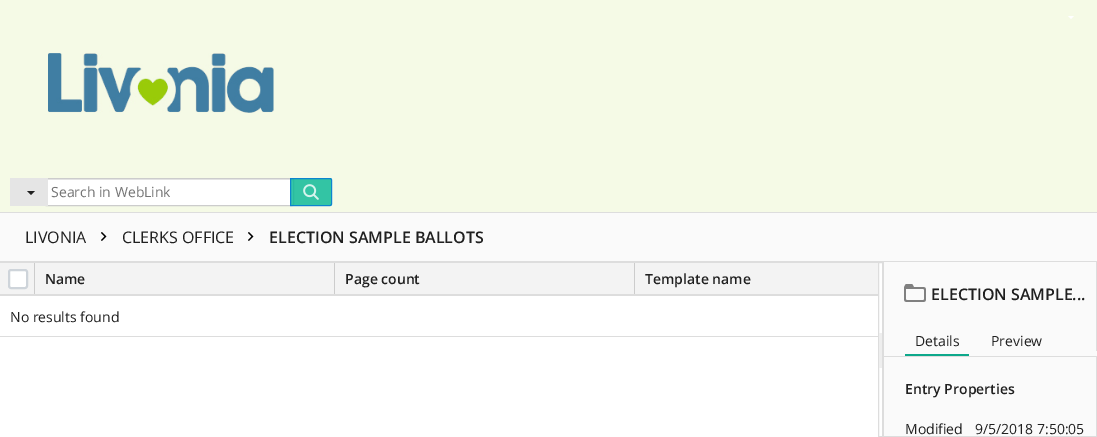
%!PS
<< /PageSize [1097 437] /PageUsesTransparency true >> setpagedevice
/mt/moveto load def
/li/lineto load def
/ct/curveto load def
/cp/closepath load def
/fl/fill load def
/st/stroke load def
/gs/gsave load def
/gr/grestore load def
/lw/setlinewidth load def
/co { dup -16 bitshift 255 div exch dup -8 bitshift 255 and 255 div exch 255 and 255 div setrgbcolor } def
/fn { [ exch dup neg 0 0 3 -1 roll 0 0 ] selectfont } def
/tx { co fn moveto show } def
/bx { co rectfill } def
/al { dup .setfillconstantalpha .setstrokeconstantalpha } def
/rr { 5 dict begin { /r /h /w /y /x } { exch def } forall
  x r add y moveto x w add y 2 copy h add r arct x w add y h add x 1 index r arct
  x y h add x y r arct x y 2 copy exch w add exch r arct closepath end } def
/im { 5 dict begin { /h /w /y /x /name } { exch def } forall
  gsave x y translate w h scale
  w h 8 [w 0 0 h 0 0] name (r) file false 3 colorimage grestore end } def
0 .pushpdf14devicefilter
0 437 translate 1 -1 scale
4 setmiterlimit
0 0 1097 437 16#FFFFFF bx
0 0 1097 212 16#F5FAE6 bx
0 212 1097 1 16#DDDDDD bx
16#FFFFFF co
1068 16 mt 1074 16 li 1071 19 li cp fl
(media/1.raw) 48 53 226 60 im
44 178 250 28 2 rr fl
16#ECECEC co
46 180 mt 292 180 li 293 182 li 293 180 li 293 179 293 179 292 179 ct 46 179 li 45 179 45 179 45 180 ct 45 181 li cp fl
16#CCCCCC co
44.5 178.5 249 27 1.5 rr st
10 178 38 28 16#E5E5E5 bx
16#202020 co
27 191 mt 35 191 li 31 195 li cp fl
0.8 al
16#02B793 co
290 178 mt 330 178 li 331 178 332 179 332 180 ct 332 204 li 332 205 331 206 330 206 ct 290 206 li cp fl
16#0275D8 co
290.5 178.5 mt 330 178.5 li 331 178.5 331.5 179 331.5 180 ct 331.5 204 li 331.5 205 331 205.5 330 205.5 ct 290.5 205.5 li cp st
1 al
(media/2.raw) 303 184 16 16 im
0 213 1097 48 16#FAFAFA bx
0 261 1097 1 16#DDDDDD bx
(media/3.raw) 101 232 6 9 im
(media/3.raw) 248 232 6 9 im
0 262 878 1 16#DDDDDD bx
0 294 878 2 16#DDDDDD bx
0 263 34 31 16#F3F3F3 bx
34 263 1 31 16#CCCCCC bx
16#FFFFFF co
9 270 18 18 2 rr gs fl gr
16#CED4DA co
2 lw
st
35 263 299 31 16#F3F3F3 bx
334 263 1 31 16#CCCCCC bx
335 263 299 31 16#F3F3F3 bx
634 263 1 31 16#CCCCCC bx
635 263 243 31 16#F3F3F3 bx
0 336 878 1 16#DDDDDD bx
1 lw
878.5 262.5 4 174 rectstroke
879 333 3 35 16#EEEEEE bx
883 262 1 175 16#DDDDDD bx
884 262 213 94 16#FAFAFA bx
1096 262 1 89 16#DDDDDD bx
(media/4.raw) 904 284 22 18 im
905 354 64 2 16#0DA88B bx
884 357 212 79 16#FAFAFA bx
884 356 213 1 16#DDDDDD bx
1096 356 1 81 16#DDDDDD bx
884 436 213 1 16#DDDDDD bx
(Search in WebLink) 51 197 /OpenSans-Regular 14 16#757575 tx
(LIVONIA) 25 243 /OpenSans-Regular 16 16#202020 tx
(CLERKS OFFICE) 122 243 /OpenSans-Regular 16 16#202020 tx
(ELECTION SAMPLE BALLOTS) 269 243 /OpenSans-SemiBold 16 16#202020 tx
(Name) 45 284 /OpenSans-SemiBold 14 16#202020 tx
(Page count) 345 284 /OpenSans-SemiBold 14 16#202020 tx
(Template name) 645 284 /OpenSans-SemiBold 14 16#202020 tx
(No results found) 10 322 /OpenSans-Regular 14 16#202020 tx
(ELECTION SAMPLE...) 931 300 /OpenSans-SemiBold 16 16#202020 tx
(Details) 915 346 /OpenSans-Regular 14 16#202020 tx
(Preview) 991 346 /OpenSans-Regular 14 16#202020 tx
(Entry Properties) 905 394 /OpenSans-SemiBold 14 16#202020 tx
(Modified) 905 434 /OpenSans-Regular 14 16#202020 tx
(9/5/2018 7:50:05) 975 434 /OpenSans-Regular 14 16#202020 tx
.poppdf14devicefilter showpage
